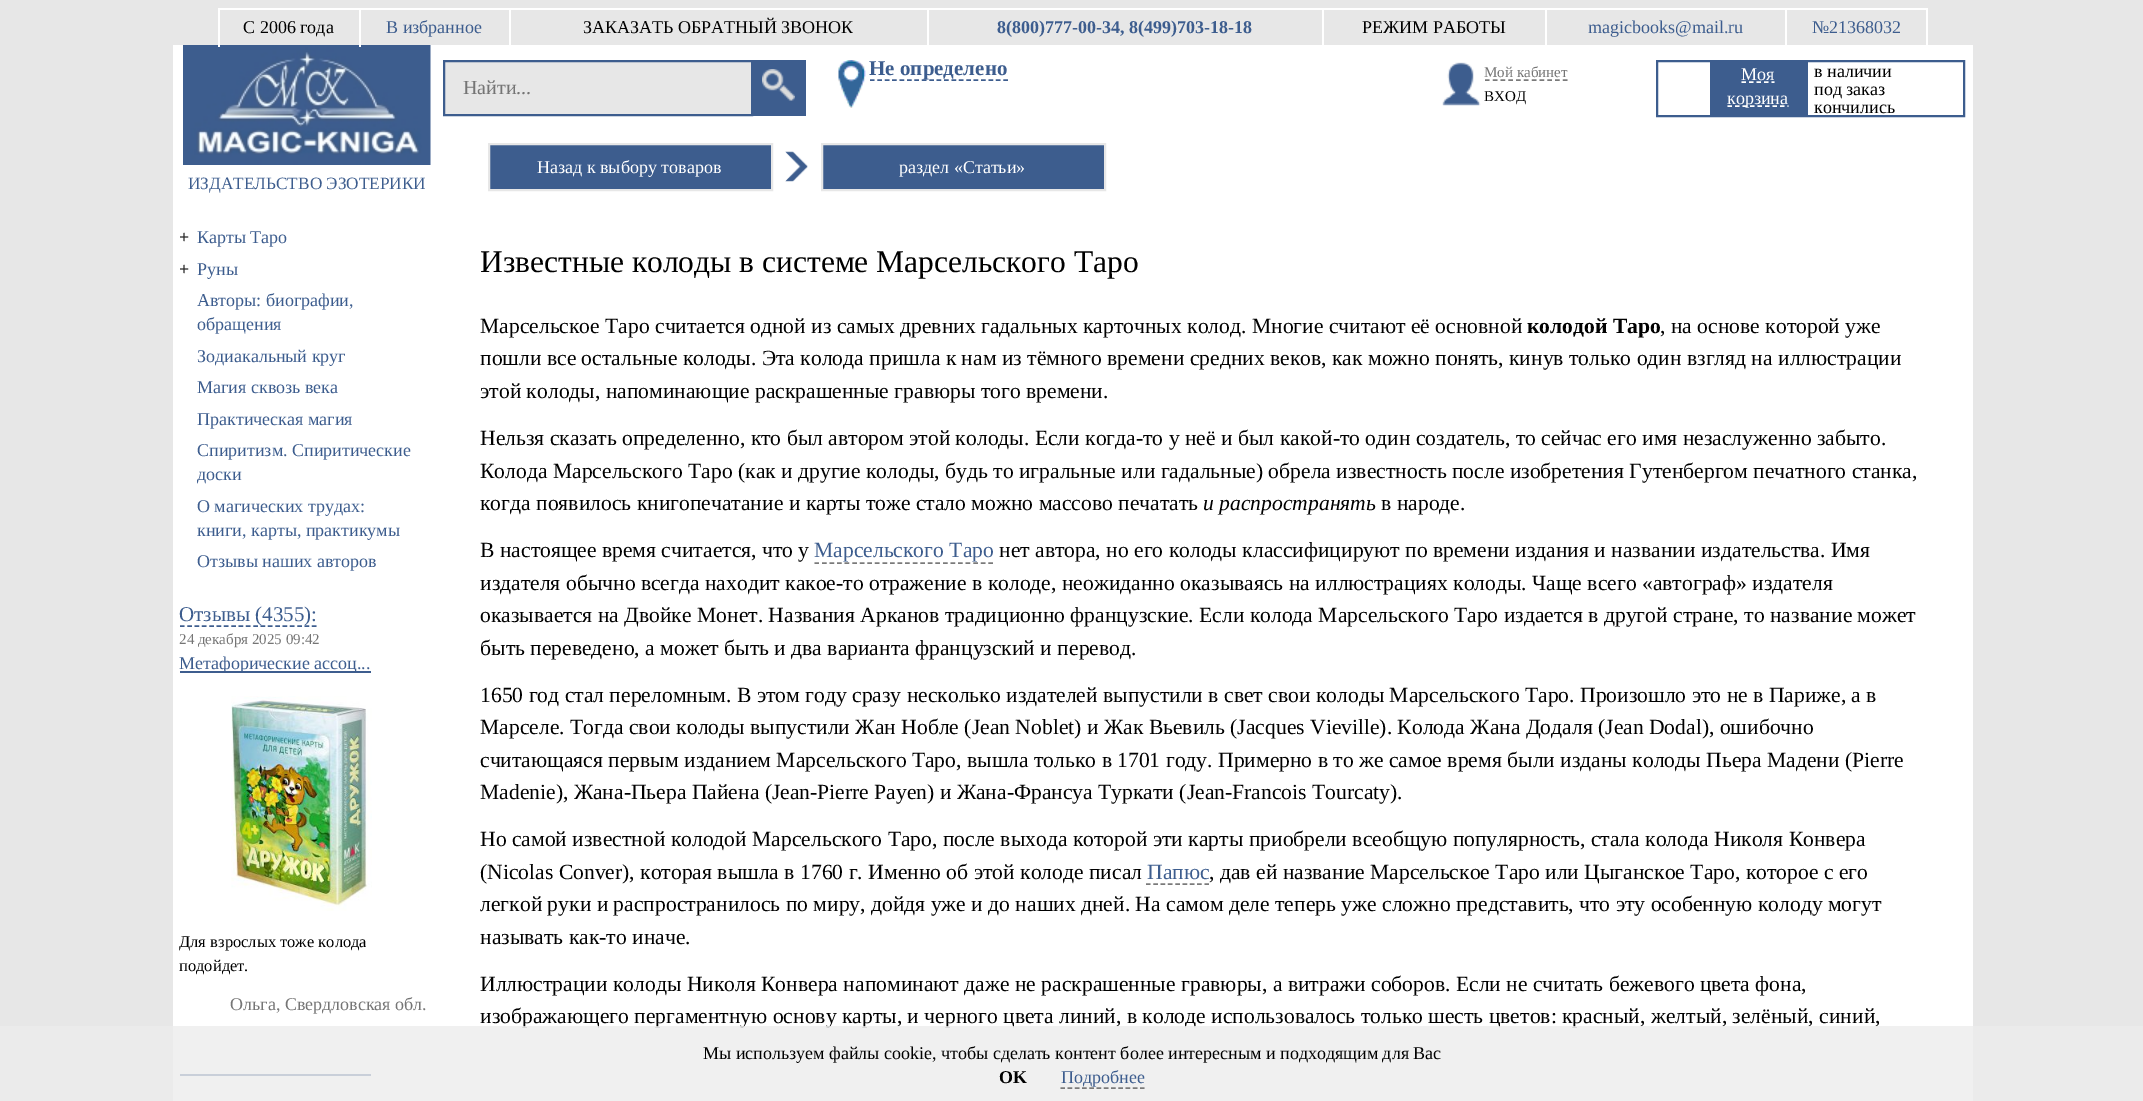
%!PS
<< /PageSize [2143 1101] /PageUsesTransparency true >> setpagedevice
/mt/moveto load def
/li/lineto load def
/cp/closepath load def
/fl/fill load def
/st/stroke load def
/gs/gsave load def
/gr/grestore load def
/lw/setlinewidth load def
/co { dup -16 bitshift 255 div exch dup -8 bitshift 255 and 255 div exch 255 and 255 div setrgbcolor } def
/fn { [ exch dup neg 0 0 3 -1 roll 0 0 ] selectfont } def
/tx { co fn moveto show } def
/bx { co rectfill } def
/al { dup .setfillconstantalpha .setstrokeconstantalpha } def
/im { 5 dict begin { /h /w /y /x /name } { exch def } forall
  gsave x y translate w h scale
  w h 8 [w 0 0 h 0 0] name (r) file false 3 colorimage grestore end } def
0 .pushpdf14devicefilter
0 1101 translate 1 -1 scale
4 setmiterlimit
0 0 2143 1101 16#E7E7E7 bx
1785 8 143 2 16#FFFFFF bx
173 45 1800 1056 16#FFFFFF bx
1785 8 2 39 16#FFFFFF bx
1545 8 242 2 16#FFFFFF bx
1545 8 2 39 16#FFFFFF bx
1322 8 225 2 16#FFFFFF bx
1322 8 2 39 16#FFFFFF bx
927 8 396 2 16#FFFFFF bx
927 8 2 39 16#FFFFFF bx
509 8 420 2 16#FFFFFF bx
509 8 2 39 16#FFFFFF bx
359 8 151 2 16#FFFFFF bx
(media/5.raw) 183 45 248 120 im
359 8 2 39 16#FFFFFF bx
218 8 142 2 16#FFFFFF bx
218 8 2 39 16#FFFFFF bx
1926 8 2 39 16#FFFFFF bx
16#E7E7E7 co
444 61 mt 752 61 li 752 115 li 444 115 li cp gs fl gr
16#3D5D8E co
2 lw
st
753 60 53 56 16#3D5D8E bx
(media/1.raw) 762 69 33 32 im
(media/2.raw) 838 60 28 48 im
1.5 lw
[4.5 2.91] 0 setdash
870 80 mt 1008 80 li st
(media/3.raw) 1442 62 39 44 im
16#7A7A7A co
[4.5 3.3] 0 setdash
1485 80 mt 1567.5 80 li st
16#3D5D8E co
2 lw
[] 0 setdash
1657 61 307 55 rectstroke
1710 62 98 53 16#3D5D8E bx
16#FFFFFF co
1.5 lw
[4.5 3] 0 setdash
1741.5 82 mt 1774.5 82 li st
1727.5 106 mt 1788.5 106 li st
16#3D5D8E co
489 144 mt 772 144 li 772 190 li 489 190 li cp gs fl gr
16#E7E7E7 co
2 lw
[] 0 setdash
st
(media/4.raw) 785 151 23 31 im
16#3D5D8E co
822 144 mt 1105 144 li 1105 190 li 822 190 li cp gs fl gr
16#E7E7E7 co
st
16#3D5D8E co
1.5 lw
[4.5 2.83] 0 setdash
180 626 mt 316.5 626 li st
180 671 191 2 16#3D5D8E bx
(media/6.raw) 231 696 141 215 im
180 1074 191 2 16#3D5D8E bx
16#7A7A7A co
[4.5 3.06] 0 setdash
814.5 563 mt 993 563 li st
[4.5 2.82] 0 setdash
1146 884 mt 1209 884 li st
(С 2006 года) 243 33 /LiberationSerif-Regular 18 16#000000 tx
(В избранное) 386 33 /LiberationSerif-Regular 18 16#3D5D8E tx
(ЗАКАЗАТЬ ОБРАТНЫЙ ЗВОНОК) 583 33 /LiberationSerif-Regular 18 16#000000 tx
(8\(800\)777-00-34, 8\(499\)703-18-18) 997 33 /LiberationSerif-Bold 18 16#3D5D8E tx
(РЕЖИМ РАБОТЫ) 1362 33 /LiberationSerif-Regular 18 16#000000 tx
(magicbooks@mail.ru) 1588 33 /LiberationSerif-Regular 18 16#3D5D8E tx
(№21368032) 1812 33 /LiberationSerif-Regular 18 16#3D5D8E tx
(Найти...) 463 94 /LiberationSerif-Regular 20 16#757575 tx
(Не определено) 869 75 /LiberationSerif-Bold 21 16#3D5D8E tx
(Мой кабинет) 1484 77 /LiberationSerif-Regular 15 16#757575 tx
(ВХОД) 1484 101 /LiberationSerif-Regular 15 16#000000 tx
(Моя) 1741 80 /LiberationSerif-Regular 18 16#FFFFFF tx
(корзина) 1727 104 /LiberationSerif-Regular 18 16#FFFFFF tx
(в наличии) 1814 77 /LiberationSerif-Regular 18 16#000000 tx
(под заказ) 1814 95 /LiberationSerif-Regular 18 16#000000 tx
(кончились) 1814 113 /LiberationSerif-Regular 18 16#000000 tx
(Назад к выбору товаров) 537 173 /LiberationSerif-Regular 18 16#FFFFFF tx
(раздел «Статьи») 899 173 /LiberationSerif-Regular 18 16#FFFFFF tx
(ИЗДАТЕЛЬСТВО ЭЗОТЕРИКИ) 188 189 /LiberationSerif-Regular 17.25 16#3D5D8E tx
(+) 179 243 /LiberationSerif-Regular 18 16#000000 tx
(Карты Таро) 197 243 /LiberationSerif-Regular 18 16#3D5D8E tx
(+) 179 275 /LiberationSerif-Regular 18 16#000000 tx
(Руны) 197 275 /LiberationSerif-Regular 18 16#3D5D8E tx
(Авторы: биографии,) 197 306 /LiberationSerif-Regular 18 16#3D5D8E tx
(обращения) 197 330 /LiberationSerif-Regular 18 16#3D5D8E tx
(Зодиакальный круг) 197 362 /LiberationSerif-Regular 18 16#3D5D8E tx
(Магия сквозь века) 197 393 /LiberationSerif-Regular 18 16#3D5D8E tx
(Практическая магия) 197 425 /LiberationSerif-Regular 18 16#3D5D8E tx
(Спиритизм. Спиритические) 197 456 /LiberationSerif-Regular 18 16#3D5D8E tx
(доски) 197 480 /LiberationSerif-Regular 18 16#3D5D8E tx
(О магических трудах:) 197 512 /LiberationSerif-Regular 18 16#3D5D8E tx
(книги, карты, практикумы) 197 536 /LiberationSerif-Regular 18 16#3D5D8E tx
(Отзывы наших авторов) 197 567 /LiberationSerif-Regular 18 16#3D5D8E tx
(Отзывы \(4355\):) 179 621 /LiberationSerif-Regular 21 16#3D5D8E tx
(24 декабря 2025 09:42) 179 644 /LiberationSerif-Regular 15 16#757575 tx
(Метафорические ассоц...) 179 669 /LiberationSerif-Regular 18 16#3D5D8E tx
(Для взрослых тоже колода) 179 947 /LiberationSerif-Regular 16.5 16#000000 tx
(подойдет.) 179 971 /LiberationSerif-Regular 16.5 16#000000 tx
(Ольга, Свердловская обл.) 230 1010 /LiberationSerif-Regular 18 16#757575 tx
(Известные колоды в системе Марсельского Таро) 480 272 /LiberationSerif-Regular 31.5 16#000000 tx
(Марсельское Таро считается одной из самых древних гадальных карточных колод. Многие считают её основной) 480 333 /LiberationSerif-Regular 21.6 16#000000 tx
(колодой Таро) 1527 333 /LiberationSerif-Bold 21.6 16#000000 tx
(, на основе которой уже) 1660 333 /LiberationSerif-Regular 21.6 16#000000 tx
(пошли все остальные колоды. Эта колода пришла к нам из тёмного времени средних веков, как можно понять, кинув только один взгляд на иллюстрации) 480 365 /LiberationSerif-Regular 21.6 16#000000 tx
(этой колоды, напоминающие раскрашенные гравюры того времени.) 480 398 /LiberationSerif-Regular 21.6 16#000000 tx
(Нельзя сказать определенно, кто был автором этой колоды. Если когда-то у неё и был какой-то один создатель, то сейчас его имя незаслуженно забыто.) 480 445 /LiberationSerif-Regular 21.6 16#000000 tx
(Колода Марсельского Таро \(как и другие колоды, будь то игральные или гадальные\) обрела известность после изобретения Гутенбергом печатного станка,) 480 478 /LiberationSerif-Regular 21.6 16#000000 tx
(когда появилось книгопечатание и карты тоже стало можно массово печатать) 480 510 /LiberationSerif-Regular 21.6 16#000000 tx
(и распространять) 1203 510 /LiberationSerif-Italic 21.6 16#000000 tx
(в народе.) 1381 510 /LiberationSerif-Regular 21.6 16#000000 tx
(В настоящее время считается, что у) 480 557 /LiberationSerif-Regular 21.6 16#000000 tx
(Марсельского Таро) 814 557 /LiberationSerif-Regular 21.6 16#3D5D8E tx
(нет автора, но его колоды классифицируют по времени издания и названии издательства. Имя) 999 557 /LiberationSerif-Regular 21.6 16#000000 tx
(издателя обычно всегда находит какое-то отражение в колоде, неожиданно оказываясь на иллюстрациях колоды. Чаще всего «автограф» издателя) 480 590 /LiberationSerif-Regular 21.6 16#000000 tx
(оказывается на Двойке Монет. Названия Арканов традиционно французские. Если колода Марсельского Таро издается в другой стране, то название может) 480 622 /LiberationSerif-Regular 21.6 16#000000 tx
(быть переведено, а может быть и два варианта французский и перевод.) 480 655 /LiberationSerif-Regular 21.6 16#000000 tx
(1650 год стал переломным. В этом году сразу несколько издателей выпустили в свет свои колоды Марсельского Таро. Произошло это не в Париже, а в) 480 702 /LiberationSerif-Regular 21.6 16#000000 tx
(Марселе. Тогда свои колоды выпустили Жан Нобле \(Jean Noblet\) и Жак Вьевиль \(Jacques Vieville\). Колода Жана Додаля \(Jean Dodal\), ошибочно) 480 734 /LiberationSerif-Regular 21.6 16#000000 tx
(считающаяся первым изданием Марсельского Таро, вышла только в 1701 году. Примерно в то же самое время были изданы колоды Пьера Мадени \(Pierre) 480 767 /LiberationSerif-Regular 21.6 16#000000 tx
(Madenie\), Жана-Пьера Пайена \(Jean-Pierre Payen\) и Жана-Франсуа Туркати \(Jean-Francois Tourcaty\).) 480 799 /LiberationSerif-Regular 21.6 16#000000 tx
(Но самой известной колодой Марсельского Таро, после выхода которой эти карты приобрели всеобщую популярность, стала колода Николя Конвера) 480 846 /LiberationSerif-Regular 21.6 16#000000 tx
(\(Nicolas Conver\), которая вышла в 1760 г. Именно об этой колоде писал) 480 879 /LiberationSerif-Regular 21.6 16#000000 tx
(Папюс) 1147 879 /LiberationSerif-Regular 21.6 16#3D5D8E tx
(, дав ей название Марсельское Таро или Цыганское Таро, которое с его) 1209 879 /LiberationSerif-Regular 21.6 16#000000 tx
(легкой руки и распространилось по миру, дойдя уже и до наших дней. На самом деле теперь уже сложно представить, что эту особенную колоду могут) 480 911 /LiberationSerif-Regular 21.6 16#000000 tx
(называть как-то иначе.) 480 944 /LiberationSerif-Regular 21.6 16#000000 tx
(Иллюстрации колоды Николя Конвера напоминают даже не раскрашенные гравюры, а витражи соборов. Если не считать бежевого цвета фона,) 480 991 /LiberationSerif-Regular 21.6 16#000000 tx
(изображающего пергаментную основу карты, и черного цвета линий, в колоде использовалось только шесть цветов: красный, желтый, зелёный, синий,) 480 1023 /LiberationSerif-Regular 21.6 16#000000 tx
0.8 al
0 1026 2143 75 16#ECECEC bx
1 al
(Мы используем файлы cookie, чтобы сделать контент более интересным и подходящим для Вас) 703 1059 /LiberationSerif-Regular 18 16#000000 tx
(OK) 999 1083 /LiberationSerif-Bold 18 16#000000 tx
(Подробнее) 1061 1083 /LiberationSerif-Regular 18 16#3D5D8E tx
16#7A7A7A co
[4.5 2.73] 0 setdash
1060.5 1088 mt 1144.5 1088 li st
.poppdf14devicefilter showpage
